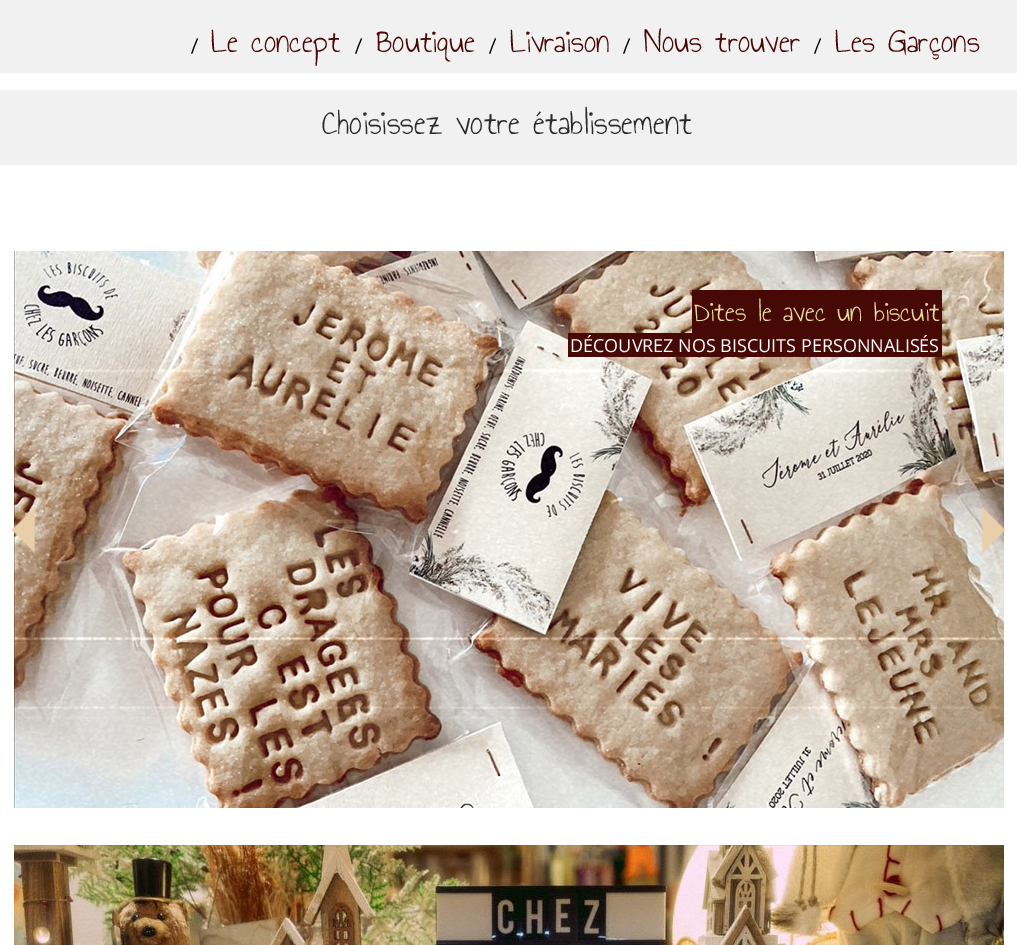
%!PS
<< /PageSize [1017 945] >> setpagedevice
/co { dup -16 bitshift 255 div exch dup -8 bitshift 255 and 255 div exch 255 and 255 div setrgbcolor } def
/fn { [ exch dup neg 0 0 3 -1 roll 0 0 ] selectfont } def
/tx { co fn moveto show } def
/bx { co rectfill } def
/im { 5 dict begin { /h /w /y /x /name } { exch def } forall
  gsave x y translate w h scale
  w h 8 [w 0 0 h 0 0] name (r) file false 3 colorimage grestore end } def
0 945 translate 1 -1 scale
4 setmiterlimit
0 0 1017 945 16#FFFFFF bx
0 0 1017 73 16#F1F1F1 bx
(media/1.raw) 191 38 7 16 im
(media/1.raw) 355 38 7 16 im
(media/1.raw) 489 38 7 16 im
(media/1.raw) 623 38 7 16 im
(media/1.raw) 814 38 7 16 im
0 90 1017 75 16#F1F1F1 bx
(media/2.raw) 14 251 990 557 im
692 290 250 43 16#470906 bx
568 333 374 24 16#470906 bx
(media/3.raw) 11 506 24 48 im
(media/4.raw) 982 506 24 48 im
(media/5.raw) 14 845 990 100 im
(Le concept) 211 52 /AnnieUseYourTelescope-Regular 34 16#470906 tx
(Boutique) 376 52 /AnnieUseYourTelescope-Regular 34 16#470906 tx
(Livraison) 510 52 /AnnieUseYourTelescope-Regular 34 16#470906 tx
(Nous trouver) 644 52 /AnnieUseYourTelescope-Regular 34 16#470906 tx
(Les Garçons) 835 52 /AnnieUseYourTelescope-Regular 34 16#470906 tx
(Choisissez votre établissement) 322 134 /AnnieUseYourTelescope-Regular 36 16#292929 tx
(Dites le avec un biscuit) 694 321 /AnnieUseYourTelescope-Regular 30 16#E6DE9F tx
(DÉCOUVREZ NOS BISCUITS PERSONNALISÉS) 570 352 /OpenSans-Regular 18 16#FFFFFF tx
showpage
